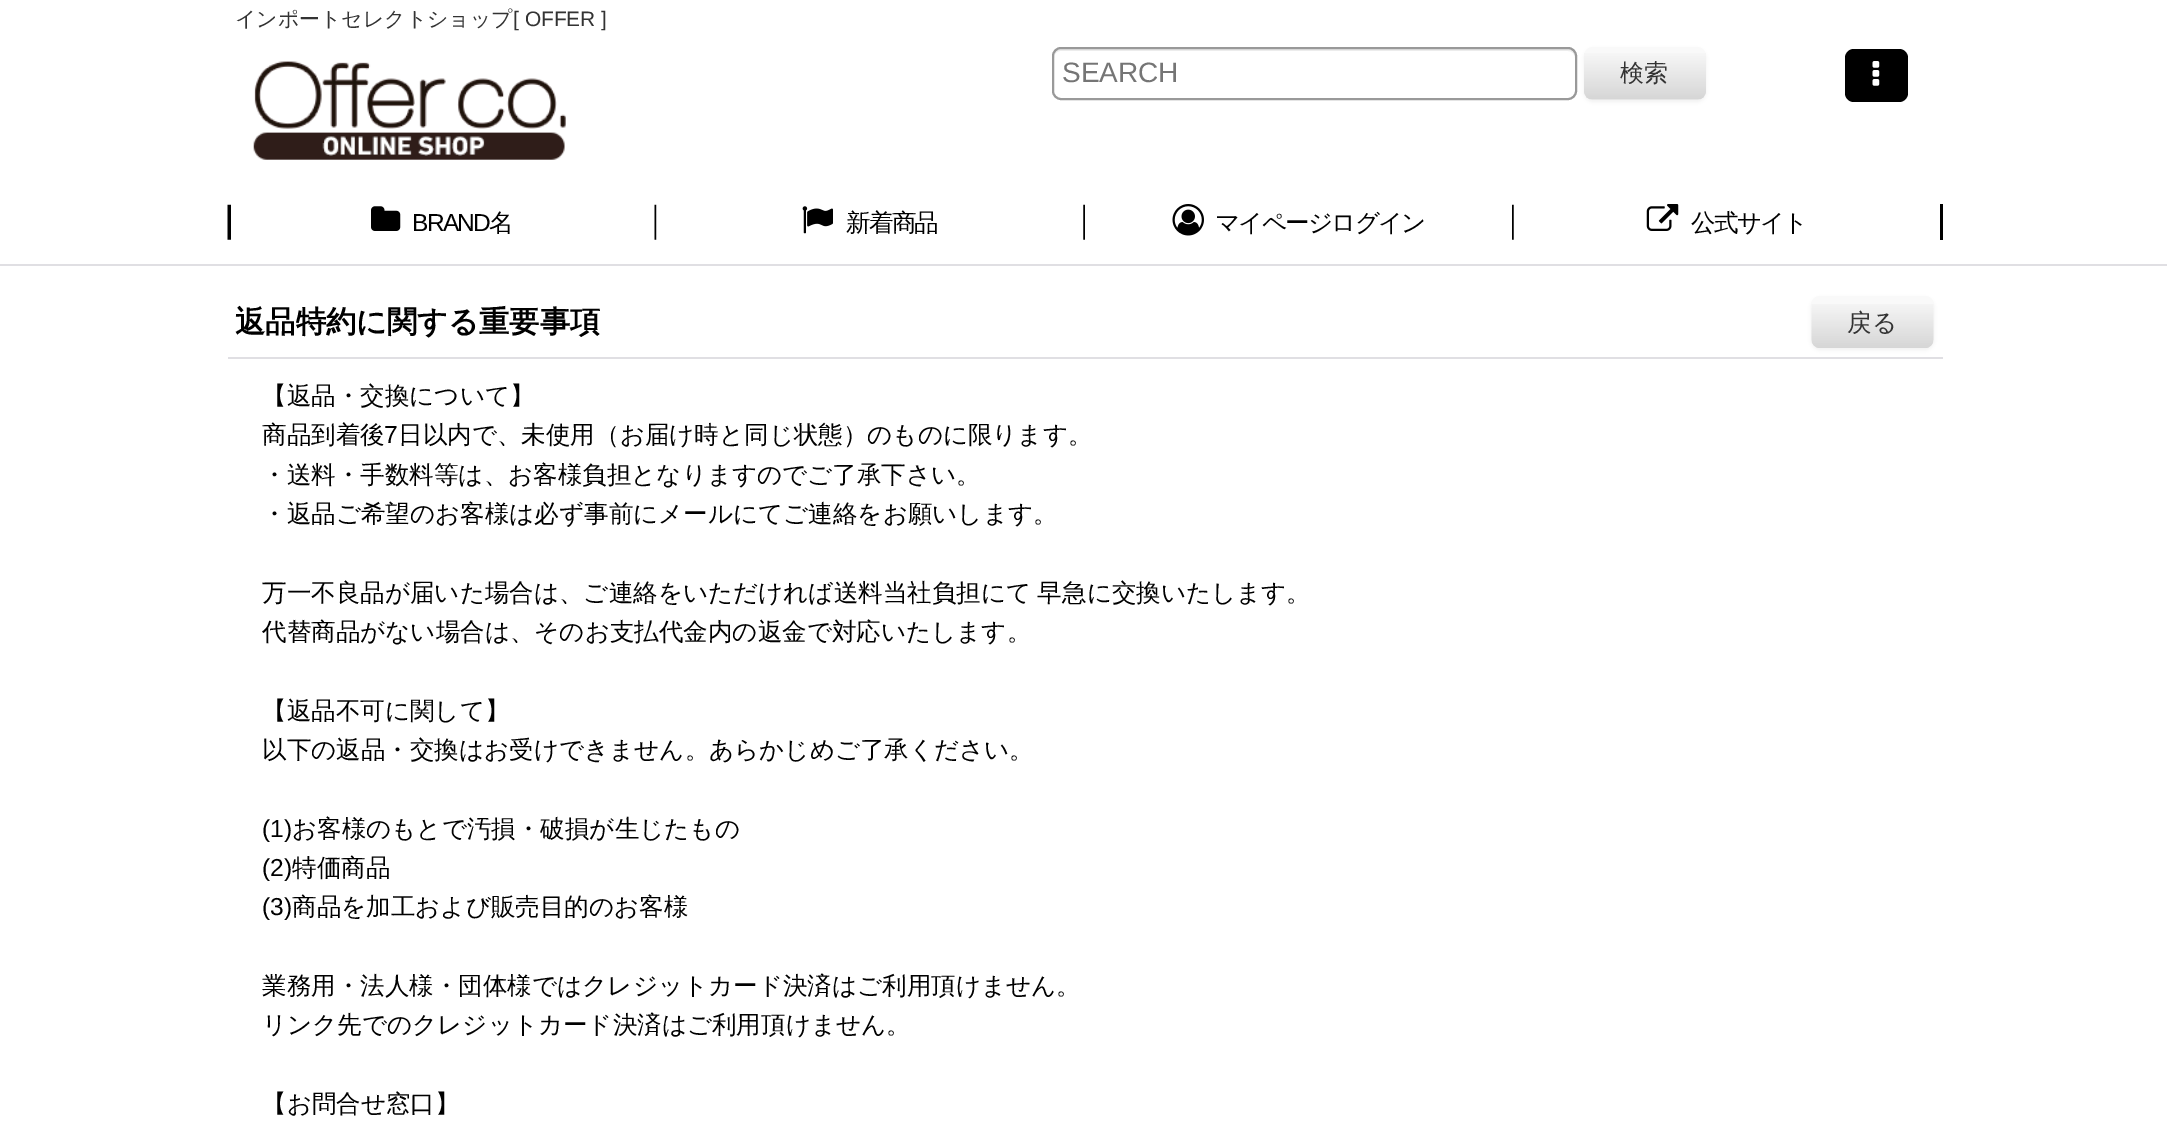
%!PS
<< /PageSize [2167 1131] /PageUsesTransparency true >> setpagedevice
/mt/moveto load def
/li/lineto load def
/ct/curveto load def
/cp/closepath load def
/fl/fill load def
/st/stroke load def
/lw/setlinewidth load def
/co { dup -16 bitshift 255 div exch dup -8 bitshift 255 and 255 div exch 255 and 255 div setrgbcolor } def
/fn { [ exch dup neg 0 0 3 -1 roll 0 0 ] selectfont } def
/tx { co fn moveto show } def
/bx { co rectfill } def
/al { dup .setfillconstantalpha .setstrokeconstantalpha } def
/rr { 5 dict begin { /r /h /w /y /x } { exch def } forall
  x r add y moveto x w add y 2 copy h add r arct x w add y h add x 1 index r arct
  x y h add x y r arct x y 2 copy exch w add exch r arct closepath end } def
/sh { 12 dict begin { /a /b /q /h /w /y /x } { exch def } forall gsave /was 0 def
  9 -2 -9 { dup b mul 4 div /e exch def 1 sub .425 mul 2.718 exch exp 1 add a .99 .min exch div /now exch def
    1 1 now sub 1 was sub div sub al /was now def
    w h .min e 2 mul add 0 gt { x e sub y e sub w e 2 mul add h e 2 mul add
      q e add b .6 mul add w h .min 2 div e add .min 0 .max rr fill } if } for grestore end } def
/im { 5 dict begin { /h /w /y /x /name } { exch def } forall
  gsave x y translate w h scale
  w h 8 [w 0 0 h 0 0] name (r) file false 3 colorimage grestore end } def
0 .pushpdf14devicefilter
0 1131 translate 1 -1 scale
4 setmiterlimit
0 0 2167 1131 16#FFFFFF bx
(media/1.raw) 253 61 313 99 im
16#000000 co
1845 49 63 53 9 rr fl
(media/2.raw) 1872 61 8 25 im
16#ECECEC co
1060 51 mt 1568 51 li 1572 51 1575 54 1575 58 ct 1575 54 1573 49 1568 49 ct 1061 49 li 1056 49 1054 54 1054 58 ct 1054 54 1057 51 1060 51 ct cp fl
16#999999 co
2 lw
1053 48 523 51 8 rr st
16#000000 co
1584 49 122 53 9 2 .05 sh
16#F9F9F9 co
1584 47 122 53 9 rr fl
(media/3.raw) 1584 53 122 47 im
0 264 2167 2 16#E0DFE3 bx
(media/4.raw) 227 204 430 36 im
(media/5.raw) 371 206 30 25 im
(media/6.raw) 1083 204 2 36 im
(media/7.raw) 802 206 31 28 im
(media/8.raw) 1512 204 2 36 im
(media/9.raw) 1172 204 32 32 im
1940 204 3 36 16#000000 bx
(media/10.raw) 1646 204 33 27 im
228 357 1715 2 16#E0DFE3 bx
16#000000 co
1811 298 123 52 9 2 .05 sh
16#F9F9F9 co
1811 296 123 52 9 rr fl
(media/11.raw) 1811 304 123 44 im
(インポートセレクトショップ) 235 26 /WenQuanYiZenHei-Medium 20.9 16#333333 tx
([ OFFER ]) 513 26 /LiberationSans-Regular 20.9 16#333333 tx
(SEARCH) 1062 82 /LiberationSans-Regular 28 16#757575 tx
(検索) 1620 81 /WenQuanYiZenHei-Medium 24 16#333333 tx
/LiberationSans-Regular 24.55 fn
16#000000 co
412 231 mt -1.75 0 (BRAND) ashow
/WenQuanYiZenHei-Medium 24.55 fn
489 231 mt -1.75 0 (名) ashow
846 231 mt -1.75 0 (新着商品) ashow
1215 231 mt -1.75 0 (マイページログイン) ashow
1691 231 mt -1.75 0 (公式サイト) ashow
(返品特約に関する重要事項) 235 332 /WenQuanYiZenHei-Bold 30.25 16#000000 tx
(戻る) 1847 331 /WenQuanYiZenHei-Medium 24.55 16#333333 tx
(【返品・交換について】) 262 404 /WenQuanYiZenHei-Medium 24.55 16#000000 tx
(商品到着後) 262 443 /WenQuanYiZenHei-Medium 24.55 16#000000 tx
(7) 384 443 /LiberationSans-Regular 24.55 16#000000 tx
(日以内で、未使用（お届け時と同じ状態）のものに限ります。) 398 443 /WenQuanYiZenHei-Medium 24.55 16#000000 tx
(・送料・手数料等は、お客様負担となりますのでご了承下さい。) 262 483 /WenQuanYiZenHei-Medium 24.55 16#000000 tx
(・返品ご希望のお客様は必ず事前にメールにてご連絡をお願いします。) 262 522 /WenQuanYiZenHei-Medium 24.55 16#000000 tx
262 601 mt -1 0 32 (万一不良品が届いた場合は、ご連絡をいただければ送料当社負担にて 早急に交換いたします。) widthshow
(代替商品がない場合は、そのお支払代金内の返金で対応いたします。) 262 640 /WenQuanYiZenHei-Medium 24.55 16#000000 tx
(【返品不可に関して】) 262 719 /WenQuanYiZenHei-Medium 24.55 16#000000 tx
(以下の返品・交換はお受けできません。あらかじめご了承ください。) 262 758 /WenQuanYiZenHei-Medium 24.55 16#000000 tx
(\(1\)) 262 837 /LiberationSans-Regular 24.55 16#000000 tx
(お客様のもとで汚損・破損が生じたもの) 292 837 /WenQuanYiZenHei-Medium 24.55 16#000000 tx
(\(2\)) 262 876 /LiberationSans-Regular 24.55 16#000000 tx
(特価商品) 292 876 /WenQuanYiZenHei-Medium 24.55 16#000000 tx
(\(3\)) 262 915 /LiberationSans-Regular 24.55 16#000000 tx
(商品を加工および販売目的のお客様) 292 915 /WenQuanYiZenHei-Medium 24.55 16#000000 tx
(業務用・法人様・団体様ではクレジットカード決済はご利用頂けません。) 262 994 /WenQuanYiZenHei-Medium 24.55 16#000000 tx
(リンク先でのクレジットカード決済はご利用頂けません。) 262 1033 /WenQuanYiZenHei-Medium 24.55 16#000000 tx
(【お問合せ窓口】) 262 1112 /WenQuanYiZenHei-Medium 24.55 16#000000 tx
.poppdf14devicefilter showpage
